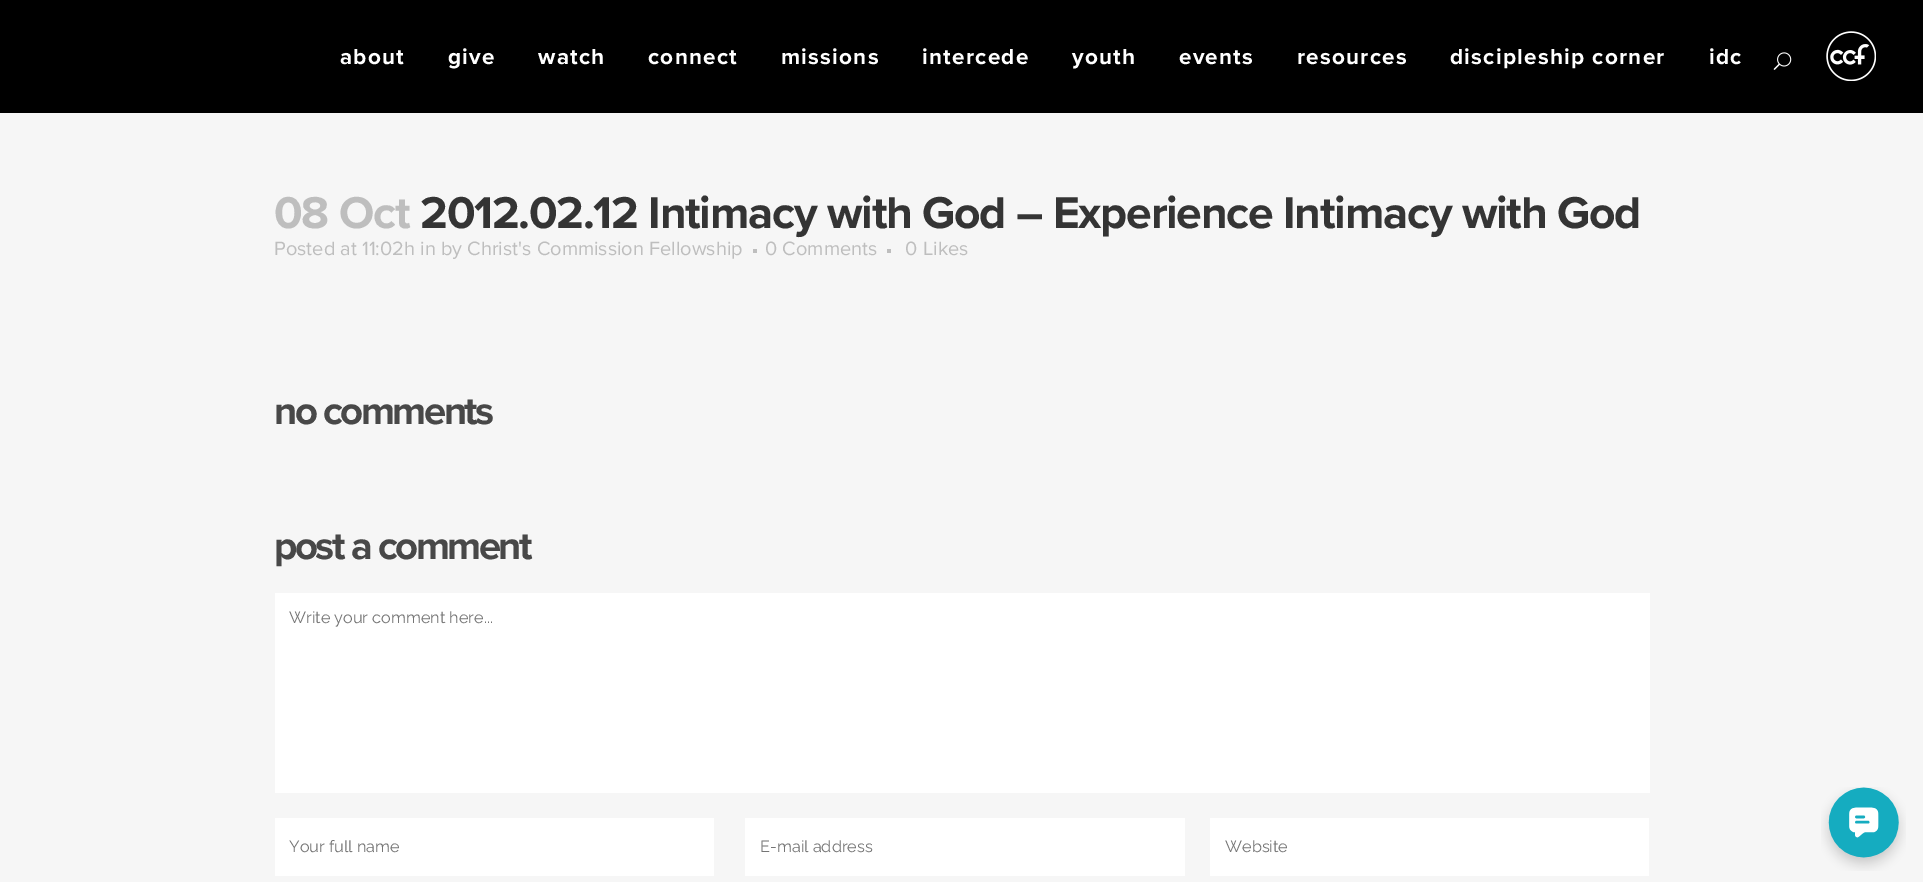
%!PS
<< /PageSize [1923 882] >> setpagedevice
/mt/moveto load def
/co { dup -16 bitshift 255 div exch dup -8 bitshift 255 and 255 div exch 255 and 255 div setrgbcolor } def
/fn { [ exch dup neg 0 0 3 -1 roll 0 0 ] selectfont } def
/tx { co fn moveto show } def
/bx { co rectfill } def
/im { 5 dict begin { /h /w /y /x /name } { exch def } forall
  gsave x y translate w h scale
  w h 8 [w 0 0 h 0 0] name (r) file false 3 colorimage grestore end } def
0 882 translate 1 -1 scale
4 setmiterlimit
0 0 1923 882 16#F6F6F6 bx
0 0 1923 113 16#000000 bx
(media/1.raw) 1826 31 50 50 im
(media/2.raw) 1773 52 19 18 im
753 249 4 4 16#BEBEBE bx
887 249 4 4 16#BEBEBE bx
275 593 1375 200 16#FFFFFF bx
275 818 439 58 16#FFFFFF bx
745 818 440 58 16#FFFFFF bx
1210 818 439 58 16#FFFFFF bx
(media/3.raw) 1821 787 85 84 im
/ProximaNova-Bold 22.5 fn
340 64 mt 1.25 0 (about) ashow
448 64 mt 1.25 0 (give) ashow
538 64 mt 1.25 0 (watch) ashow
648 64 mt 1.25 0 (connect) ashow
781 64 mt 1.25 0 (missions) ashow
922 64 mt 1.25 0 (intercede) ashow
1072 64 mt 1.25 0 (youth) ashow
1179 64 mt 1.25 0 (events) ashow
1297 64 mt 1.25 0 (resources) ashow
1450 64 mt 1.25 0 (discipleship corner) ashow
1709 64 mt 1.25 0 (idc) ashow
/ProximaNova-Bold 46.25 fn
16#BEBEBE co
274 228 mt -1.25 0 (08 Oct) ashow
16#343434 co
420 228 mt -1.25 0 (2012.02.12 Intimacy with God – Experience Intimacy with God) ashow
(Posted at 11:02h in by Christ's Commission Fellowship) 274 255 /ProximaNova-Regular 20 16#BEBEBE tx
(0 Comments) 765 255 /ProximaNova-Regular 20 16#BEBEBE tx
(0) 905 255 /ProximaNova-Regular 20 16#BEBEBE tx
(Likes) 923 255 /ProximaNova-Regular 20 16#BEBEBE tx
/ProximaNova-Bold 40 fn
16#484848 co
274 424 mt -2.5 0 (no comments) ashow
274 559 mt -2.5 0 (post a comment) ashow
(Write your comment here...) 289 623 /Raleway-Regular 16.25 16#757575 tx
(Your full name) 289 852 /Raleway-Regular 16.25 16#757575 tx
(E-mail address) 760 852 /Raleway-Regular 16.25 16#757575 tx
(Website) 1225 852 /Raleway-Regular 16.25 16#757575 tx
showpage
